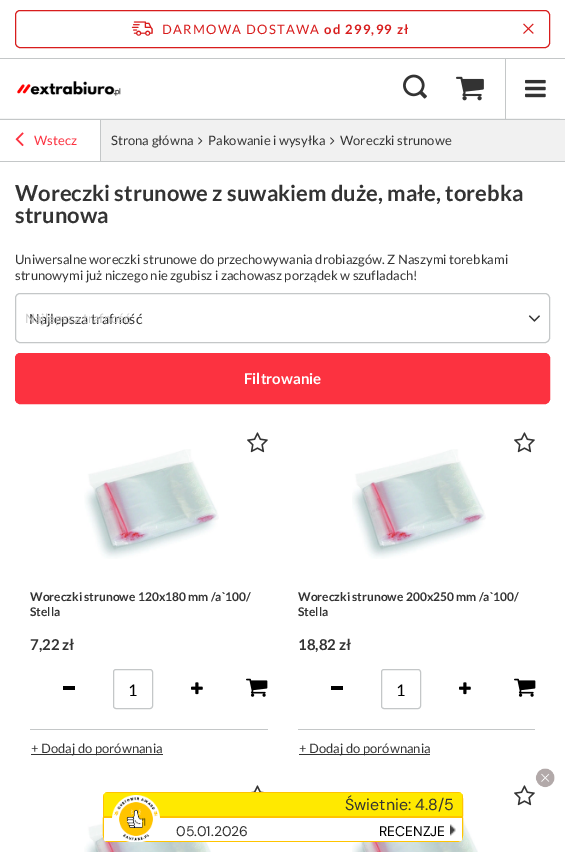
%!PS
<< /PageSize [565 852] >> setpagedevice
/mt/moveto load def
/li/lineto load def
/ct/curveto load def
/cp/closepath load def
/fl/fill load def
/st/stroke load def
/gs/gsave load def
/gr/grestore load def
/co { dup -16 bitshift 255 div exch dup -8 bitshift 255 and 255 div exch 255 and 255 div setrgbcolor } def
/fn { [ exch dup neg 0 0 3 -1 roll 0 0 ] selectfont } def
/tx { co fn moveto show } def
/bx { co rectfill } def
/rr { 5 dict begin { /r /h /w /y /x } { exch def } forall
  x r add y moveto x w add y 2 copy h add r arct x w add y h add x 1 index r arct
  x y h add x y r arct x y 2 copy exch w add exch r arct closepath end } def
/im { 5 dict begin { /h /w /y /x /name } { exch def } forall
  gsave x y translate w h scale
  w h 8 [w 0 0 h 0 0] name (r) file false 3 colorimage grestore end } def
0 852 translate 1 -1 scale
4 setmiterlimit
0 0 565 852 16#FFFFFF bx
100 119 1 43 16#C4C7C8 bx
0 119 565 1 16#C4C7C8 bx
16#D81D1D co
15.5 10.5 534 37 4.5 rr st
(media/1.raw) 131 21 22 15 im
(media/2.raw) 523 23 11 11 im
0 118 560 1 16#F3F4F4 bx
505 58 1 61 16#C4C7C8 bx
0 58 565 1 16#C4C7C8 bx
(media/3.raw) 17 81 104 15 im
(media/4.raw) 403 74 24 25 im
(media/5.raw) 456 76 28 25 im
(media/6.raw) 525 79 21 19 im
(media/7.raw) 15 132 9 15 im
101 120 464 41 16#F1F1F1 bx
560 118 5 1 16#FCFCFC bx
(media/8.raw) 198 137 5 8 im
(media/8.raw) 330 137 5 8 im
0 161 565 1 16#C4C7C8 bx
15.5 293.5 534 49 4.5 rr st
(media/9.raw) 528 315 12 7 im
16#FC3240 co
15.5 353.5 534 50 4.5 rr gs fl gr
st
(media/10.raw) 247 432 21 21 im
(media/11.raw) 84 449 135 110 im
63 686 12 4 16#000000 bx
16#C4C7C8 co
113.5 669.5 39 39 2.5 rr st
(media/12.raw) 191 682 12 13 im
(media/13.raw) 246 678 22 19 im
30 729 238 1 16#C4C7C8 bx
31 754 132 1 16#333333 bx
(media/10.raw) 514 432 21 21 im
(media/14.raw) 352 449 134 110 im
331 686 12 4 16#000000 bx
16#C4C7C8 co
381.5 669.5 39 39 2.5 rr st
(media/12.raw) 459 682 12 13 im
(media/13.raw) 514 678 22 19 im
298 729 237 1 16#C4C7C8 bx
299 754 131 1 16#333333 bx
(media/15.raw) 251 785 13 7 im
(media/16.raw) 84 802 127 50 im
(media/10.raw) 514 785 21 21 im
(media/17.raw) 352 802 126 50 im
(media/18.raw) 535 768 20 20 im
16#FFE900 co
103 792 360 50 5 rr fl
16#FFC400 co
103 797 mt 103 817 li 463 817 li 463 813 464 797 462 794 ct 462 816 li 104 816 li 104 794 li cp 108 792 mt 105 793 li 461 793 li 458 792 li cp eofill
16#FFFFFF co
103 817 mt 463 817 li 463 837 li 463 840 461 842 458 842 ct 108 842 li 105 842 103 840 103 837 ct cp fl
16#FFC400 co
104 818 mt 462 818 li 462 840 li 464 837 463 821 463 817 ct 103 817 li 103 821 102 837 104 840 ct cp 458 842 mt 461 841 li 105 841 li 106 842 107 842 108 842 ct cp eofill
(media/19.raw) 112 795 48 47 im
(media/20.raw) 450 824 6 12 im
/Lato-Regular 13 fn
16#D81D1D co
162 34 mt 1.25 0 (DARMOWA DOSTAWA) ashow
/Lato-Bold 13 fn
324 34 mt 1.25 0 (od 299,99 zł) ashow
(Wstecz) 34 145 /Lato-Regular 13 16#FC3240 tx
(Strona główna) 111 145 /Lato-Regular 13 16#333333 tx
(Pakowanie i wysyłka) 208 145 /Lato-Regular 13 16#333333 tx
(Woreczki strunowe) 340 145 /Lato-Regular 13 16#333333 tx
(Woreczki strunowe z suwakiem duże, małe, torebka) 15 201 /Lato-Bold 22 16#333333 tx
(strunowa) 15 223 /Lato-Bold 22 16#333333 tx
(Uniwersalne woreczki strunowe do przechowywania drobiazgów. Z Naszymi torebkami) 15 264 /Lato-Regular 13 16#333333 tx
(strunowymi już niczego nie zgubisz i zachowasz porządek w szufladach!) 15 280 /Lato-Regular 13 16#333333 tx
(Najlepsza trafność) 29 324 /Lato-Regular 14 16#333333 tx
(Najlepsza trafność) 25 323 /Lato-Regular 13 16#C8C8C8 tx
(Filtrowanie) 244 384 /Lato-Bold 15 16#FFFFFF tx
(Woreczki strunowe 120x180 mm /a`100/) 30 601 /Lato-Bold 12 16#333333 tx
(Stella) 30 616 /Lato-Bold 12 16#333333 tx
(7,22 zł) 30 650 /Lato-Bold 15 16#333333 tx
(1) 128 696 /Lato-Regular 16 16#000000 tx
(+ Dodaj do porównania) 31 753 /Lato-Regular 13 16#333333 tx
(Woreczki strunowe 200x250 mm /a`100/) 298 601 /Lato-Bold 12 16#333333 tx
(Stella) 298 616 /Lato-Bold 12 16#333333 tx
(18,82 zł) 298 650 /Lato-Bold 15 16#333333 tx
(1) 396 696 /Lato-Regular 16 16#000000 tx
(+ Dodaj do porównania) 299 753 /Lato-Regular 13 16#333333 tx
(Świetnie: 4.8/5) 345 810 /DMSans-Regular 16 16#333333 tx
(05.01.2026) 176 836 /DMSans-Regular 14 16#333333 tx
(RECENZJE) 379 836 /DMSans-Regular 14 16#000000 tx
showpage
